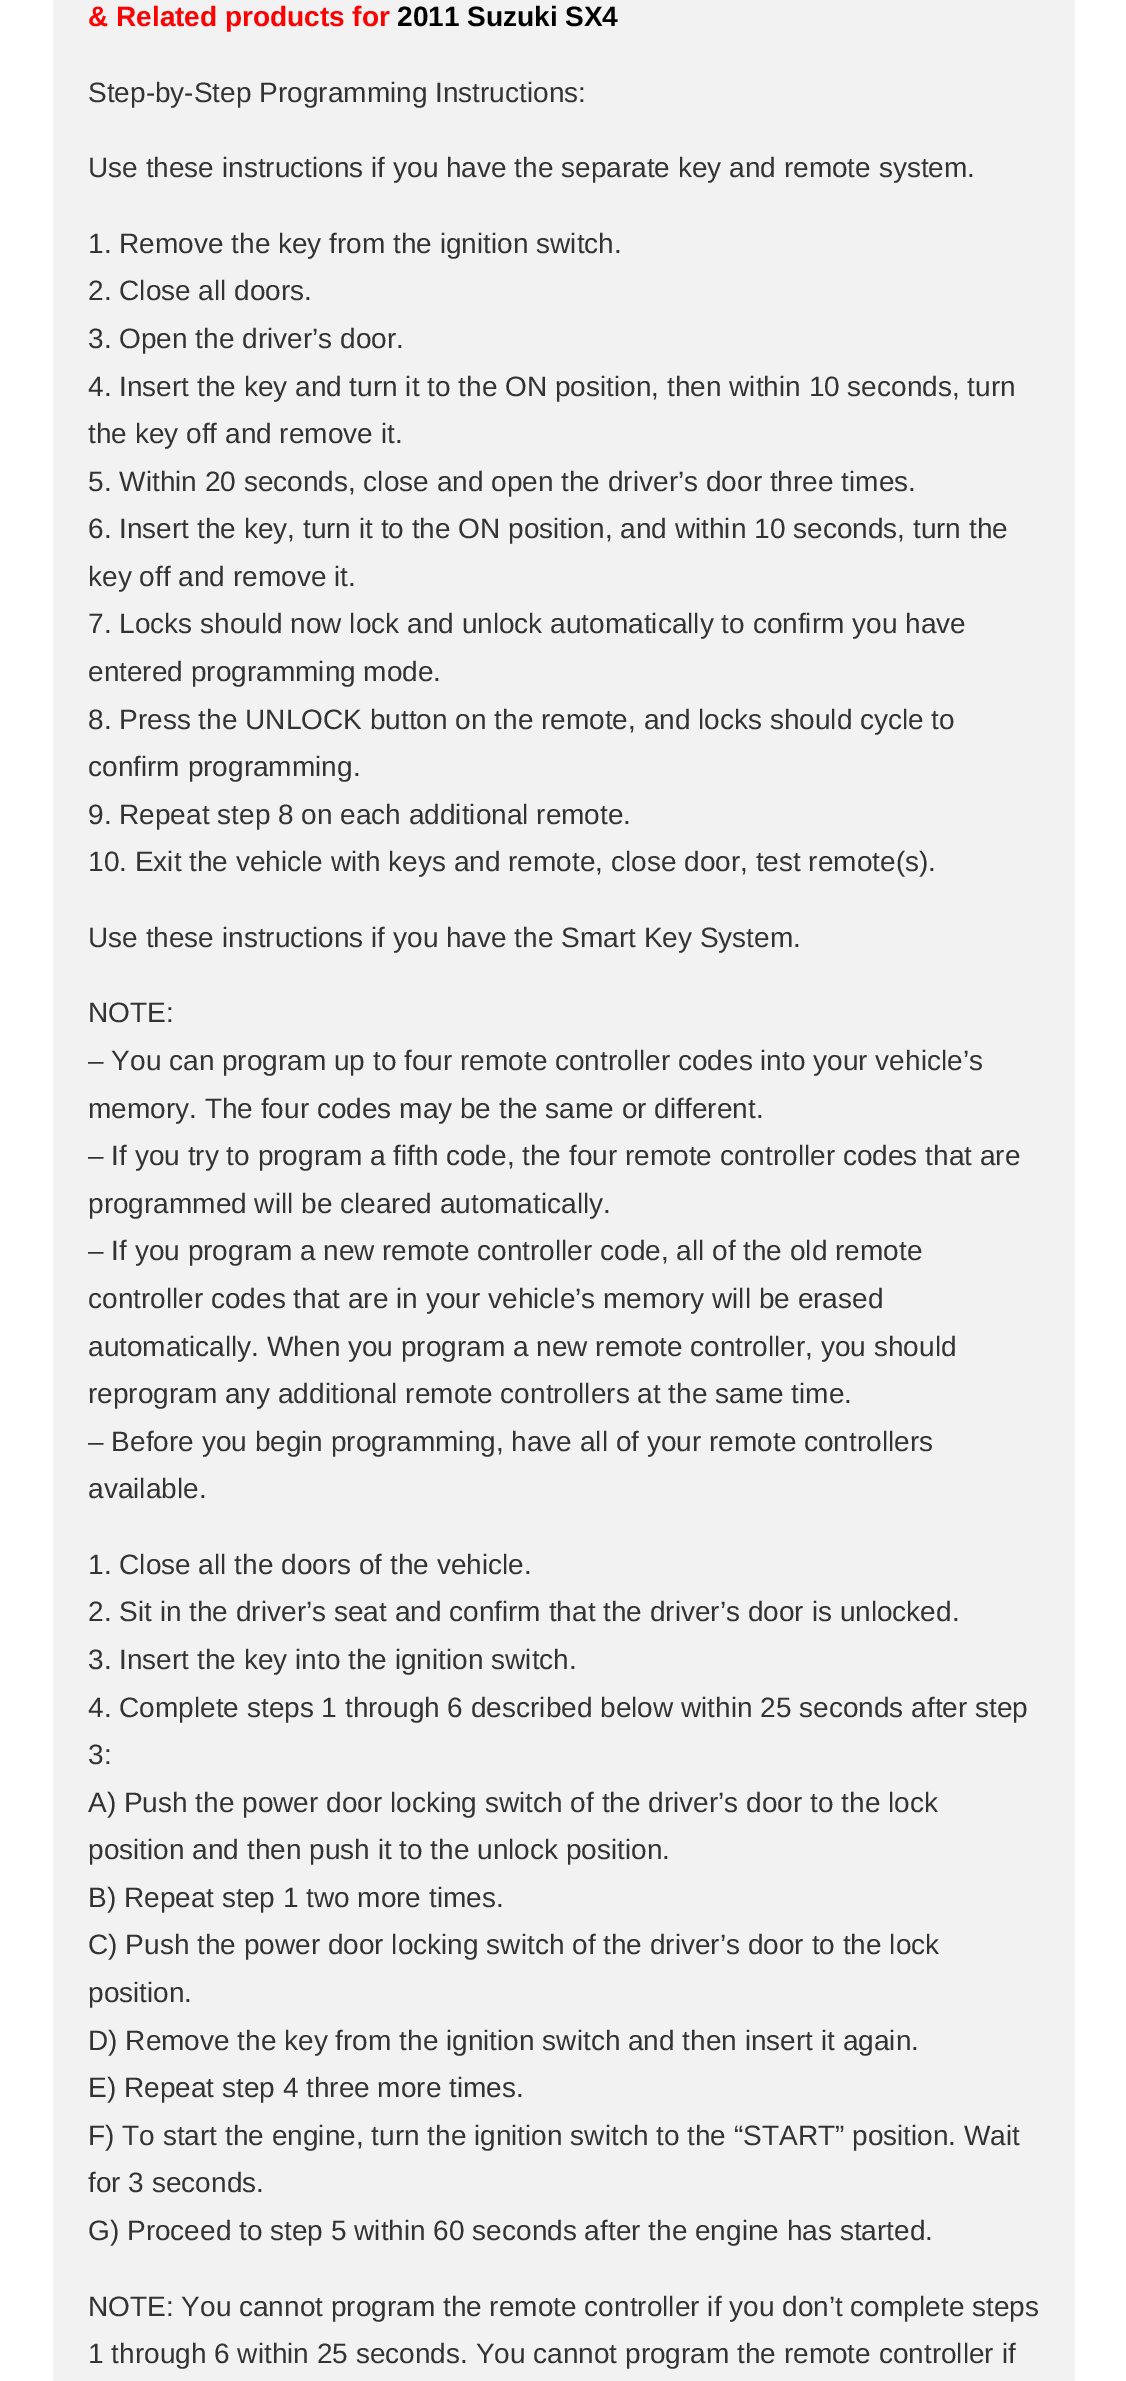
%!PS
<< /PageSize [1126 2381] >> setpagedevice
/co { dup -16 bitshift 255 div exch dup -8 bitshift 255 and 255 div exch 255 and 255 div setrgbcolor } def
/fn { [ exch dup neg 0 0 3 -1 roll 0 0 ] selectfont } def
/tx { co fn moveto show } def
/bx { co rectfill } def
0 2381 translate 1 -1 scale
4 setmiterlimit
0 0 1126 2381 16#FFFFFF bx
53 0 1022 2381 16#F2F2F2 bx
(& Related products for) 88 26 /LiberationSans-Bold 28 16#FF0000 tx
(2011 Suzuki SX4) 397 26 /LiberationSans-Bold 28 16#000000 tx
(Step-by-Step Programming Instructions:) 88 102 /LiberationSans-Regular 28 16#333333 tx
(Use these instructions if you have the separate key and remote system.) 88 177 /LiberationSans-Regular 28 16#333333 tx
(1. Remove the key from the ignition switch.) 88 253 /LiberationSans-Regular 28 16#333333 tx
(2. Close all doors.) 88 300 /LiberationSans-Regular 28 16#333333 tx
(3. Open the driver’s door.) 88 348 /LiberationSans-Regular 28 16#333333 tx
(4. Insert the key and turn it to the ON position, then within 10 seconds, turn) 88 396 /LiberationSans-Regular 28 16#333333 tx
(the key off and remove it.) 88 443 /LiberationSans-Regular 28 16#333333 tx
(5. Within 20 seconds, close and open the driver’s door three times.) 88 491 /LiberationSans-Regular 28 16#333333 tx
(6. Insert the key, turn it to the ON position, and within 10 seconds, turn the) 88 538 /LiberationSans-Regular 28 16#333333 tx
(key off and remove it.) 88 586 /LiberationSans-Regular 28 16#333333 tx
(7. Locks should now lock and unlock automatically to confirm you have) 88 633 /LiberationSans-Regular 28 16#333333 tx
(entered programming mode.) 88 681 /LiberationSans-Regular 28 16#333333 tx
(8. Press the UNLOCK button on the remote, and locks should cycle to) 88 729 /LiberationSans-Regular 28 16#333333 tx
(confirm programming.) 88 776 /LiberationSans-Regular 28 16#333333 tx
(9. Repeat step 8 on each additional remote.) 88 824 /LiberationSans-Regular 28 16#333333 tx
(10. Exit the vehicle with keys and remote, close door, test remote\(s\).) 88 871 /LiberationSans-Regular 28 16#333333 tx
(Use these instructions if you have the Smart Key System.) 88 947 /LiberationSans-Regular 28 16#333333 tx
(NOTE:) 88 1022 /LiberationSans-Regular 28 16#333333 tx
(– You can program up to four remote controller codes into your vehicle’s) 88 1070 /LiberationSans-Regular 28 16#333333 tx
(memory. The four codes may be the same or different.) 88 1118 /LiberationSans-Regular 28 16#333333 tx
(– If you try to program a fifth code, the four remote controller codes that are) 88 1165 /LiberationSans-Regular 28 16#333333 tx
(programmed will be cleared automatically.) 88 1213 /LiberationSans-Regular 28 16#333333 tx
(– If you program a new remote controller code, all of the old remote) 88 1260 /LiberationSans-Regular 28 16#333333 tx
(controller codes that are in your vehicle’s memory will be erased) 88 1308 /LiberationSans-Regular 28 16#333333 tx
(automatically. When you program a new remote controller, you should) 88 1356 /LiberationSans-Regular 28 16#333333 tx
(reprogram any additional remote controllers at the same time.) 88 1403 /LiberationSans-Regular 28 16#333333 tx
(– Before you begin programming, have all of your remote controllers) 88 1451 /LiberationSans-Regular 28 16#333333 tx
(available.) 88 1498 /LiberationSans-Regular 28 16#333333 tx
(1. Close all the doors of the vehicle.) 88 1574 /LiberationSans-Regular 28 16#333333 tx
(2. Sit in the driver’s seat and confirm that the driver’s door is unlocked.) 88 1621 /LiberationSans-Regular 28 16#333333 tx
(3. Insert the key into the ignition switch.) 88 1669 /LiberationSans-Regular 28 16#333333 tx
(4. Complete steps 1 through 6 described below within 25 seconds after step) 88 1717 /LiberationSans-Regular 28 16#333333 tx
(3:) 88 1764 /LiberationSans-Regular 28 16#333333 tx
(A\) Push the power door locking switch of the driver’s door to the lock) 88 1812 /LiberationSans-Regular 28 16#333333 tx
(position and then push it to the unlock position.) 88 1859 /LiberationSans-Regular 28 16#333333 tx
(B\) Repeat step 1 two more times.) 88 1907 /LiberationSans-Regular 28 16#333333 tx
(C\) Push the power door locking switch of the driver’s door to the lock) 88 1954 /LiberationSans-Regular 28 16#333333 tx
(position.) 88 2002 /LiberationSans-Regular 28 16#333333 tx
(D\) Remove the key from the ignition switch and then insert it again.) 88 2050 /LiberationSans-Regular 28 16#333333 tx
(E\) Repeat step 4 three more times.) 88 2097 /LiberationSans-Regular 28 16#333333 tx
(F\) To start the engine, turn the ignition switch to the “START” position. Wait) 88 2145 /LiberationSans-Regular 28 16#333333 tx
(for 3 seconds.) 88 2192 /LiberationSans-Regular 28 16#333333 tx
(G\) Proceed to step 5 within 60 seconds after the engine has started.) 88 2240 /LiberationSans-Regular 28 16#333333 tx
(NOTE: You cannot program the remote controller if you don’t complete steps) 88 2316 /LiberationSans-Regular 28 16#333333 tx
(1 through 6 within 25 seconds. You cannot program the remote controller if) 88 2363 /LiberationSans-Regular 28 16#333333 tx
showpage
